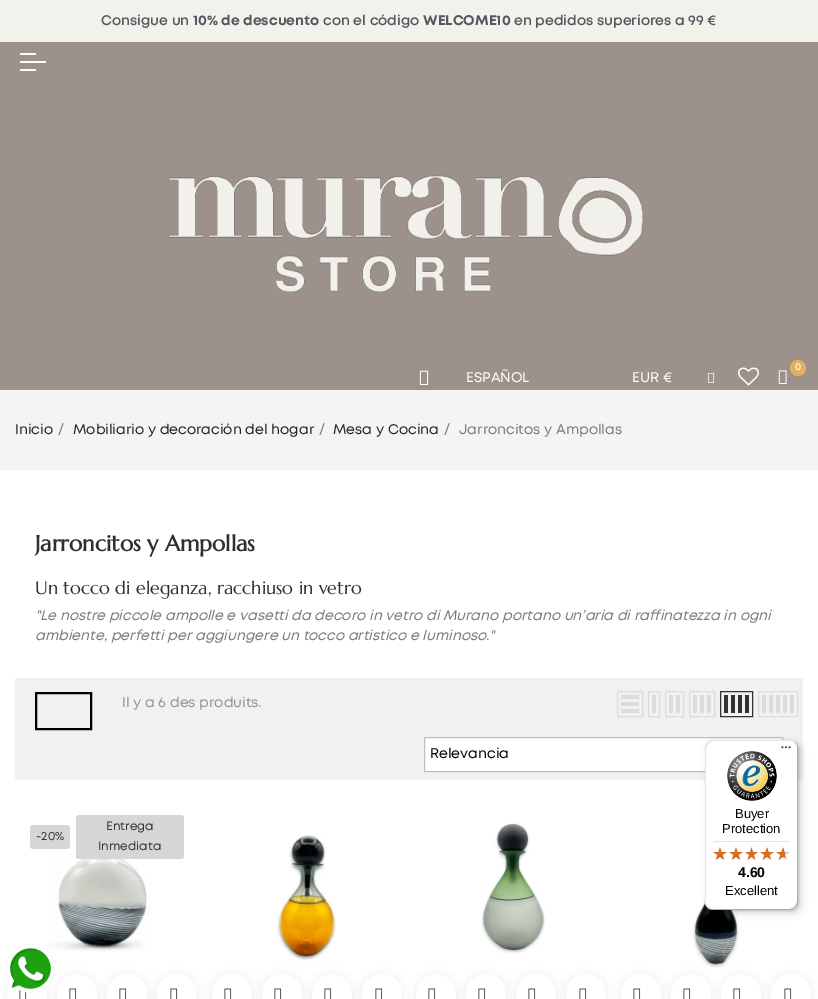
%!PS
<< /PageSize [818 999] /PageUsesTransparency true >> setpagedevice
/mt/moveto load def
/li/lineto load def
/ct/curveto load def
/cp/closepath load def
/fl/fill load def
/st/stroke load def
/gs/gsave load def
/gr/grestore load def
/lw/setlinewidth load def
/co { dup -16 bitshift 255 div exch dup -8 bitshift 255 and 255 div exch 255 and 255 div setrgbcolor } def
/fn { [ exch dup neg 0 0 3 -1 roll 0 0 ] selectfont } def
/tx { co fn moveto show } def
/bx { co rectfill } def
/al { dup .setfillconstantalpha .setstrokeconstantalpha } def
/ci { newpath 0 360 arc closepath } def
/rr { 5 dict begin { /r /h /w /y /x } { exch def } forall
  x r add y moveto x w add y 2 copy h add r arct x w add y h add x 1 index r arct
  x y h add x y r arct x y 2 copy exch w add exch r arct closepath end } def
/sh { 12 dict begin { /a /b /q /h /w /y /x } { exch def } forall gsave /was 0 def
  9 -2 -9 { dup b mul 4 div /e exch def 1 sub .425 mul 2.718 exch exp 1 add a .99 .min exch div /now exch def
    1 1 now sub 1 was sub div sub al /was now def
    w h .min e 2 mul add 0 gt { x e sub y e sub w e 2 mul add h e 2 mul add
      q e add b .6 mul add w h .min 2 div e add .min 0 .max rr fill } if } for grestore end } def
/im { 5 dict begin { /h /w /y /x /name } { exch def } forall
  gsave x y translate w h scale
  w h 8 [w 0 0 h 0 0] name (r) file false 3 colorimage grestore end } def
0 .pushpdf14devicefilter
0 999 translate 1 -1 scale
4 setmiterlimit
0 0 818 999 16#FFFFFF bx
0 0 818 42 16#F3F1EC bx
0 42 818 348 16#9C928B bx
20 53 16 2 16#FFFFFF bx
20 61 26 2 16#FFFFFF bx
20 69 16 2 16#FFFFFF bx
(media/1.raw) 168 175 475 118 im
(media/2.raw) 419 370 10 15 im
(media/3.raw) 708 373 7 10 im
(media/4.raw) 738 367 21 19 im
16#E6AF5D co
798 368 8 ci fl
(media/5.raw) 778 370 9 14 im
0 390 818 80 16#F4F4F4 bx
15 678 788 102 16#F1F1F1 bx
16#000000 co
2 lw
36 693 55 36 rectstroke
16#DCDCDC co
1 lw
617.5 691.5 25 25 rectstroke
621 709 18 4 16#DCDCDC bx
621 702 18 4 16#DCDCDC bx
621 695 18 4 16#DCDCDC bx
648.5 691.5 11 25 rectstroke
652 695 4 18 16#DCDCDC bx
665.5 691.5 18 25 rectstroke
676 695 4 18 16#DCDCDC bx
669 695 4 18 16#DCDCDC bx
689.5 691.5 25 25 rectstroke
707 695 4 18 16#DCDCDC bx
700 695 4 18 16#DCDCDC bx
693 695 4 18 16#DCDCDC bx
16#323232 co
720.5 691.5 32 25 rectstroke
745 695 4 18 16#323232 bx
738 695 4 18 16#323232 bx
731 695 4 18 16#323232 bx
724 695 4 18 16#323232 bx
16#DCDCDC co
758.5 691.5 39 25 rectstroke
790 695 4 18 16#DCDCDC bx
783 695 4 18 16#DCDCDC bx
776 695 4 18 16#DCDCDC bx
769 695 4 18 16#DCDCDC bx
762 695 4 18 16#DCDCDC bx
16#FFFFFF co
424.5 737.5 mt 782.5 737.5 li 782.5 771.5 li 424.5 771.5 li cp gs fl gr
16#BFBFBF co
st
(media/6.raw) 47 836 104 116 im
16#D6D6D6 co
30 825 40 24 3 rr fl
76 815 108 44 3 rr fl
16#000000 co
7 975 40 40 20 4.5 .07 sh
16#FFFFFF co
27 994 20 ci fl
(media/7.raw) 19 989 8 10 im
16#000000 co
57 975 40 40 20 4.5 .07 sh
16#FFFFFF co
77 994 20 ci fl
(media/8.raw) 69 988 8 11 im
16#000000 co
107 975 40 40 20 4.5 .07 sh
16#FFFFFF co
127 994 20 ci fl
(media/8.raw) 119 988 8 11 im
16#000000 co
157 975 40 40 20 4.5 .07 sh
16#FFFFFF co
177 994 20 ci fl
(media/8.raw) 170 988 8 11 im
(media/9.raw) 277 835 59 126 im
16#000000 co
212 975 40 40 20 4.5 .07 sh
16#FFFFFF co
232 994 20 ci fl
(media/8.raw) 224 988 8 11 im
16#000000 co
262 975 40 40 20 4.5 .07 sh
16#FFFFFF co
282 994 20 ci fl
(media/8.raw) 274 988 8 11 im
16#000000 co
312 975 40 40 20 4.5 .07 sh
16#FFFFFF co
332 994 20 ci fl
(media/8.raw) 324 988 8 11 im
16#000000 co
362 975 40 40 20 4.5 .07 sh
16#FFFFFF co
382 994 20 ci fl
(media/8.raw) 375 988 8 11 im
(media/10.raw) 481 823 65 131 im
16#000000 co
416 975 40 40 20 4.5 .07 sh
16#FFFFFF co
436 994 20 ci fl
(media/8.raw) 428 988 8 11 im
16#000000 co
466 975 40 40 20 4.5 .07 sh
16#FFFFFF co
486 994 20 ci fl
(media/8.raw) 478 988 8 11 im
16#000000 co
516 975 40 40 20 4.5 .07 sh
16#FFFFFF co
536 994 20 ci fl
(media/8.raw) 528 988 8 11 im
16#000000 co
566 975 40 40 20 4.5 .07 sh
16#FFFFFF co
586 994 20 ci fl
(media/8.raw) 579 988 8 11 im
(media/11.raw) 692 806 48 162 im
16#000000 co
621 975 40 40 20 4.5 .07 sh
16#FFFFFF co
641 994 20 ci fl
(media/8.raw) 633 988 8 11 im
16#000000 co
671 975 40 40 20 4.5 .07 sh
16#FFFFFF co
691 994 20 ci fl
(media/8.raw) 683 988 8 11 im
16#000000 co
721 975 40 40 20 4.5 .07 sh
16#FFFFFF co
741 994 20 ci fl
(media/8.raw) 733 988 8 11 im
16#000000 co
771 975 40 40 20 4.5 .07 sh
16#FFFFFF co
791 994 20 ci fl
(media/8.raw) 784 988 8 11 im
(media/12.raw) 5 944 50 50 im
16#000000 co
708 743 93 170 8 4 .15 sh
706 741 93 170 8 1 .15 sh
16#FFFFFF co
705 740 93 170 8 rr fl
0.1 al
16#000000 co
714 741 mt 791 741 li 793 741 795 742 797 744 ct 795 742 793 740 790 740 ct 713 740 li 709 740 705 744 705 748 ct 705 902 li 705 905 707 907 709 909 ct 707 907 706 905 706 903 ct 706 749 li 706 745 710 741 714 741 ct cp fl
0.2 al
706 906 mt 708 908 710 910 713 910 ct 790 910 li 794 910 798 906 798 902 ct 798 748 li 798 745 796 743 794 741 ct 796 743 797 745 797 747 ct 797 901 li 797 905 793 909 789 909 ct 712 909 li 710 909 708 908 706 906 ct cp fl
16#323232 co
707 907 mt 708 909 711 910 713 910 ct 790 910 li 794 910 798 906 798 902 ct 798 748 li 798 746 797 743 795 742 ct 796 743 797 745 797 747 ct 797 901 li 797 906 794 909 789 909 ct 712 909 li 710 909 708 908 707 907 ct cp fl
1 al
(media/13.raw) 781 746 10 3 im
0.3 al
16#FFFFFF co
790 910 mt 794.5 910 798 906.5 798 902 ct 798 906 794 910 790 910 ct cp fl
1 al
(media/14.raw) 727 751 50 50 im
713 841 77 1 16#E5E5E5 bx
(media/15.raw) 713 847 14 13 im
(media/15.raw) 729 847 14 13 im
(media/16.raw) 745 847 13 13 im
(media/15.raw) 760 847 14 13 im
(media/15.raw) 776 847 14 13 im
(media/17.raw) 713 847 14 13 im
(media/17.raw) 729 847 14 13 im
(media/18.raw) 745 847 13 13 im
(media/17.raw) 760 847 14 13 im
(media/19.raw) 776 847 9 13 im
(Consigue un) 101 25 /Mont-SemiBold 14 16#54595F tx
(10% de descuento) 193 25 /Mont-Bold 14 16#54595F tx
(con el código) 323 25 /Mont-SemiBold 14 16#54595F tx
(WELCOME10) 423 25 /Mont-Bold 14 16#54595F tx
(en pedidos superiores a 99 €) 514 25 /Mont-SemiBold 14 16#54595F tx
(ESPAÑOL) 466 382 /Mont-Regular 14 16#FFFFFF tx
(EUR €) 632 382 /Mont-Regular 14 16#FFFFFF tx
(0) 795 370 /Mont-SemiBold 10 16#FFFFFF tx
(Inicio) 15 434 /Mont-Regular 14 16#232323 tx
(/) 58 434 /Mont-Regular 14 16#7A7A7A tx
(Mobiliario y decoración del hogar) 73 434 /Mont-Regular 14 16#232323 tx
(/) 319 434 /Mont-Regular 14 16#7A7A7A tx
(Mesa y Cocina) 333 434 /Mont-Regular 14 16#232323 tx
(/) 444 434 /Mont-Regular 14 16#7A7A7A tx
(Jarroncitos y Ampollas) 459 434 /Mont-Regular 14 16#7A7A7A tx
(Jarroncitos y Ampollas) 35 551 /Marcellus-Bold 22 16#332F2C tx
(Un tocco di eleganza, racchiuso in vetro) 35 594 /Marcellus-Regular 18 16#332F2C tx
("Le nostre piccole ampolle e vasetti da decoro in vetro di Murano portano un’aria di raffinatezza in ogni) 35 620 /Mont-Italic 14 16#7A7A7A tx
(ambiente, perfetti per aggiungere un tocco artistico e luminoso.") 35 640 /Mont-Italic 14 16#7A7A7A tx
(Il y a 6 des produits.) 122 707 /Mont-Regular 14 16#8D9396 tx
(Relevancia) 430 758 /Mont-Regular 14 16#000000 tx
(-20%) 36 840 /Mont-Regular 12 16#333333 tx
(Entrega) 106 830 /Mont-Regular 12 16#333333 tx
(Inmediata) 98 850 /Mont-Regular 12 16#333333 tx
(Buyer) 735 818 /LiberationSans-Regular 13 16#000000 tx
(Protection) 722 833 /LiberationSans-Regular 13 16#000000 tx
(4.60) 738 877 /LiberationSans-Bold 14 16#000000 tx
(Excellent) 725 895 /LiberationSans-Regular 13 16#000000 tx
.poppdf14devicefilter showpage
